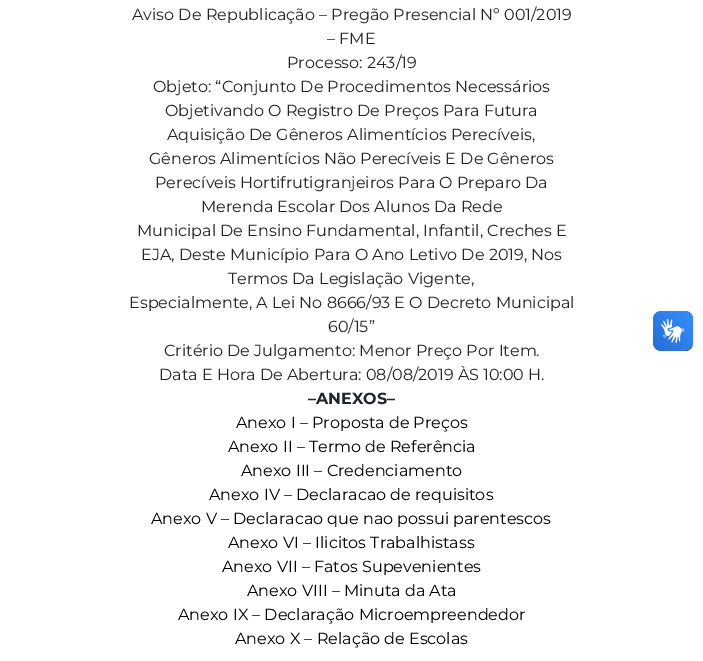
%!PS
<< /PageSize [703 661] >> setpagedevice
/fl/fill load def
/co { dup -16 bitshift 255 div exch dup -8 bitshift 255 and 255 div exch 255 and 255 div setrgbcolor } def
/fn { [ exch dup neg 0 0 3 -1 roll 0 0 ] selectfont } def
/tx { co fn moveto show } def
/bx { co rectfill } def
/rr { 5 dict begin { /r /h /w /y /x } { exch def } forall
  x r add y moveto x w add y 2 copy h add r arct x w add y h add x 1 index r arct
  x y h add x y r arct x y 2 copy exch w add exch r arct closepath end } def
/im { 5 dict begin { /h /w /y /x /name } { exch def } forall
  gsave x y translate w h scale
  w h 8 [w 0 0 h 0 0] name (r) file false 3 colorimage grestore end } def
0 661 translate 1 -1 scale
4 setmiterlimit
0 0 703 661 16#FFFFFF bx
16#004E90 co
653 311 40 40 8 rr fl
(media/1.raw) 653 311 40 40 im
(media/2.raw) 653 311 40 40 im
(Aviso De Republicação – Pregão Presencial Nº 001/2019) 132 20 /Montserrat-Regular 16 16#212529 tx
(– FME) 327 44 /Montserrat-Regular 16 16#212529 tx
(Processo: 243/19) 287 68 /Montserrat-Regular 16 16#212529 tx
(Objeto: “Conjunto De Procedimentos Necessários) 153 92 /Montserrat-Regular 16 16#212529 tx
(Objetivando O Registro De Preços Para Futura) 165 116 /Montserrat-Regular 16 16#212529 tx
(Aquisição De Gêneros Alimentícios Perecíveis,) 167 140 /Montserrat-Regular 16 16#212529 tx
(Gêneros Alimentícios Não Perecíveis E De Gêneros) 149 164 /Montserrat-Regular 16 16#212529 tx
(Perecíveis Hortifrutigranjeiros Para O Preparo Da) 155 188 /Montserrat-Regular 16 16#212529 tx
(Merenda Escolar Dos Alunos Da Rede) 201 212 /Montserrat-Regular 16 16#212529 tx
(Municipal De Ensino Fundamental, Infantil, Creches E) 137 236 /Montserrat-Regular 16 16#212529 tx
(EJA, Deste Município Para O Ano Letivo De 2019, Nos) 141 260 /Montserrat-Regular 16 16#212529 tx
(Termos Da Legislação Vigente,) 228 284 /Montserrat-Regular 16 16#212529 tx
(Especialmente, A Lei No 8666/93 E O Decreto Municipal) 129 308 /Montserrat-Regular 16 16#212529 tx
(60/15”) 328 332 /Montserrat-Regular 16 16#212529 tx
(Critério De Julgamento: Menor Preço Por Item.) 164 356 /Montserrat-Regular 16 16#212529 tx
(Data E Hora De Abertura: 08/08/2019 ÀS 10:00 H.) 159 380 /Montserrat-Regular 16 16#212529 tx
(–ANEXOS–) 308 404 /Montserrat-Bold 16 16#212529 tx
(Anexo I – Proposta de Preços) 236 428 /Montserrat-Regular 16 16#000000 tx
(Anexo II – Termo de Referência) 228 452 /Montserrat-Regular 16 16#000000 tx
(Anexo III – Credenciamento) 241 476 /Montserrat-Regular 16 16#000000 tx
(Anexo IV – Declaracao de requisitos) 209 500 /Montserrat-Regular 16 16#000000 tx
(Anexo V – Declaracao que nao possui parentescos) 151 524 /Montserrat-Regular 16 16#000000 tx
(Anexo VI – Ilicitos Trabalhistass) 228 548 /Montserrat-Regular 16 16#000000 tx
(Anexo VII – Fatos Supevenientes) 222 572 /Montserrat-Regular 16 16#000000 tx
(Anexo VIII – Minuta da Ata) 247 596 /Montserrat-Regular 16 16#000000 tx
(Anexo IX – Declaração Microempreendedor) 178 620 /Montserrat-Regular 16 16#000000 tx
(Anexo X – Relação de Escolas) 235 644 /Montserrat-Regular 16 16#000000 tx
showpage
